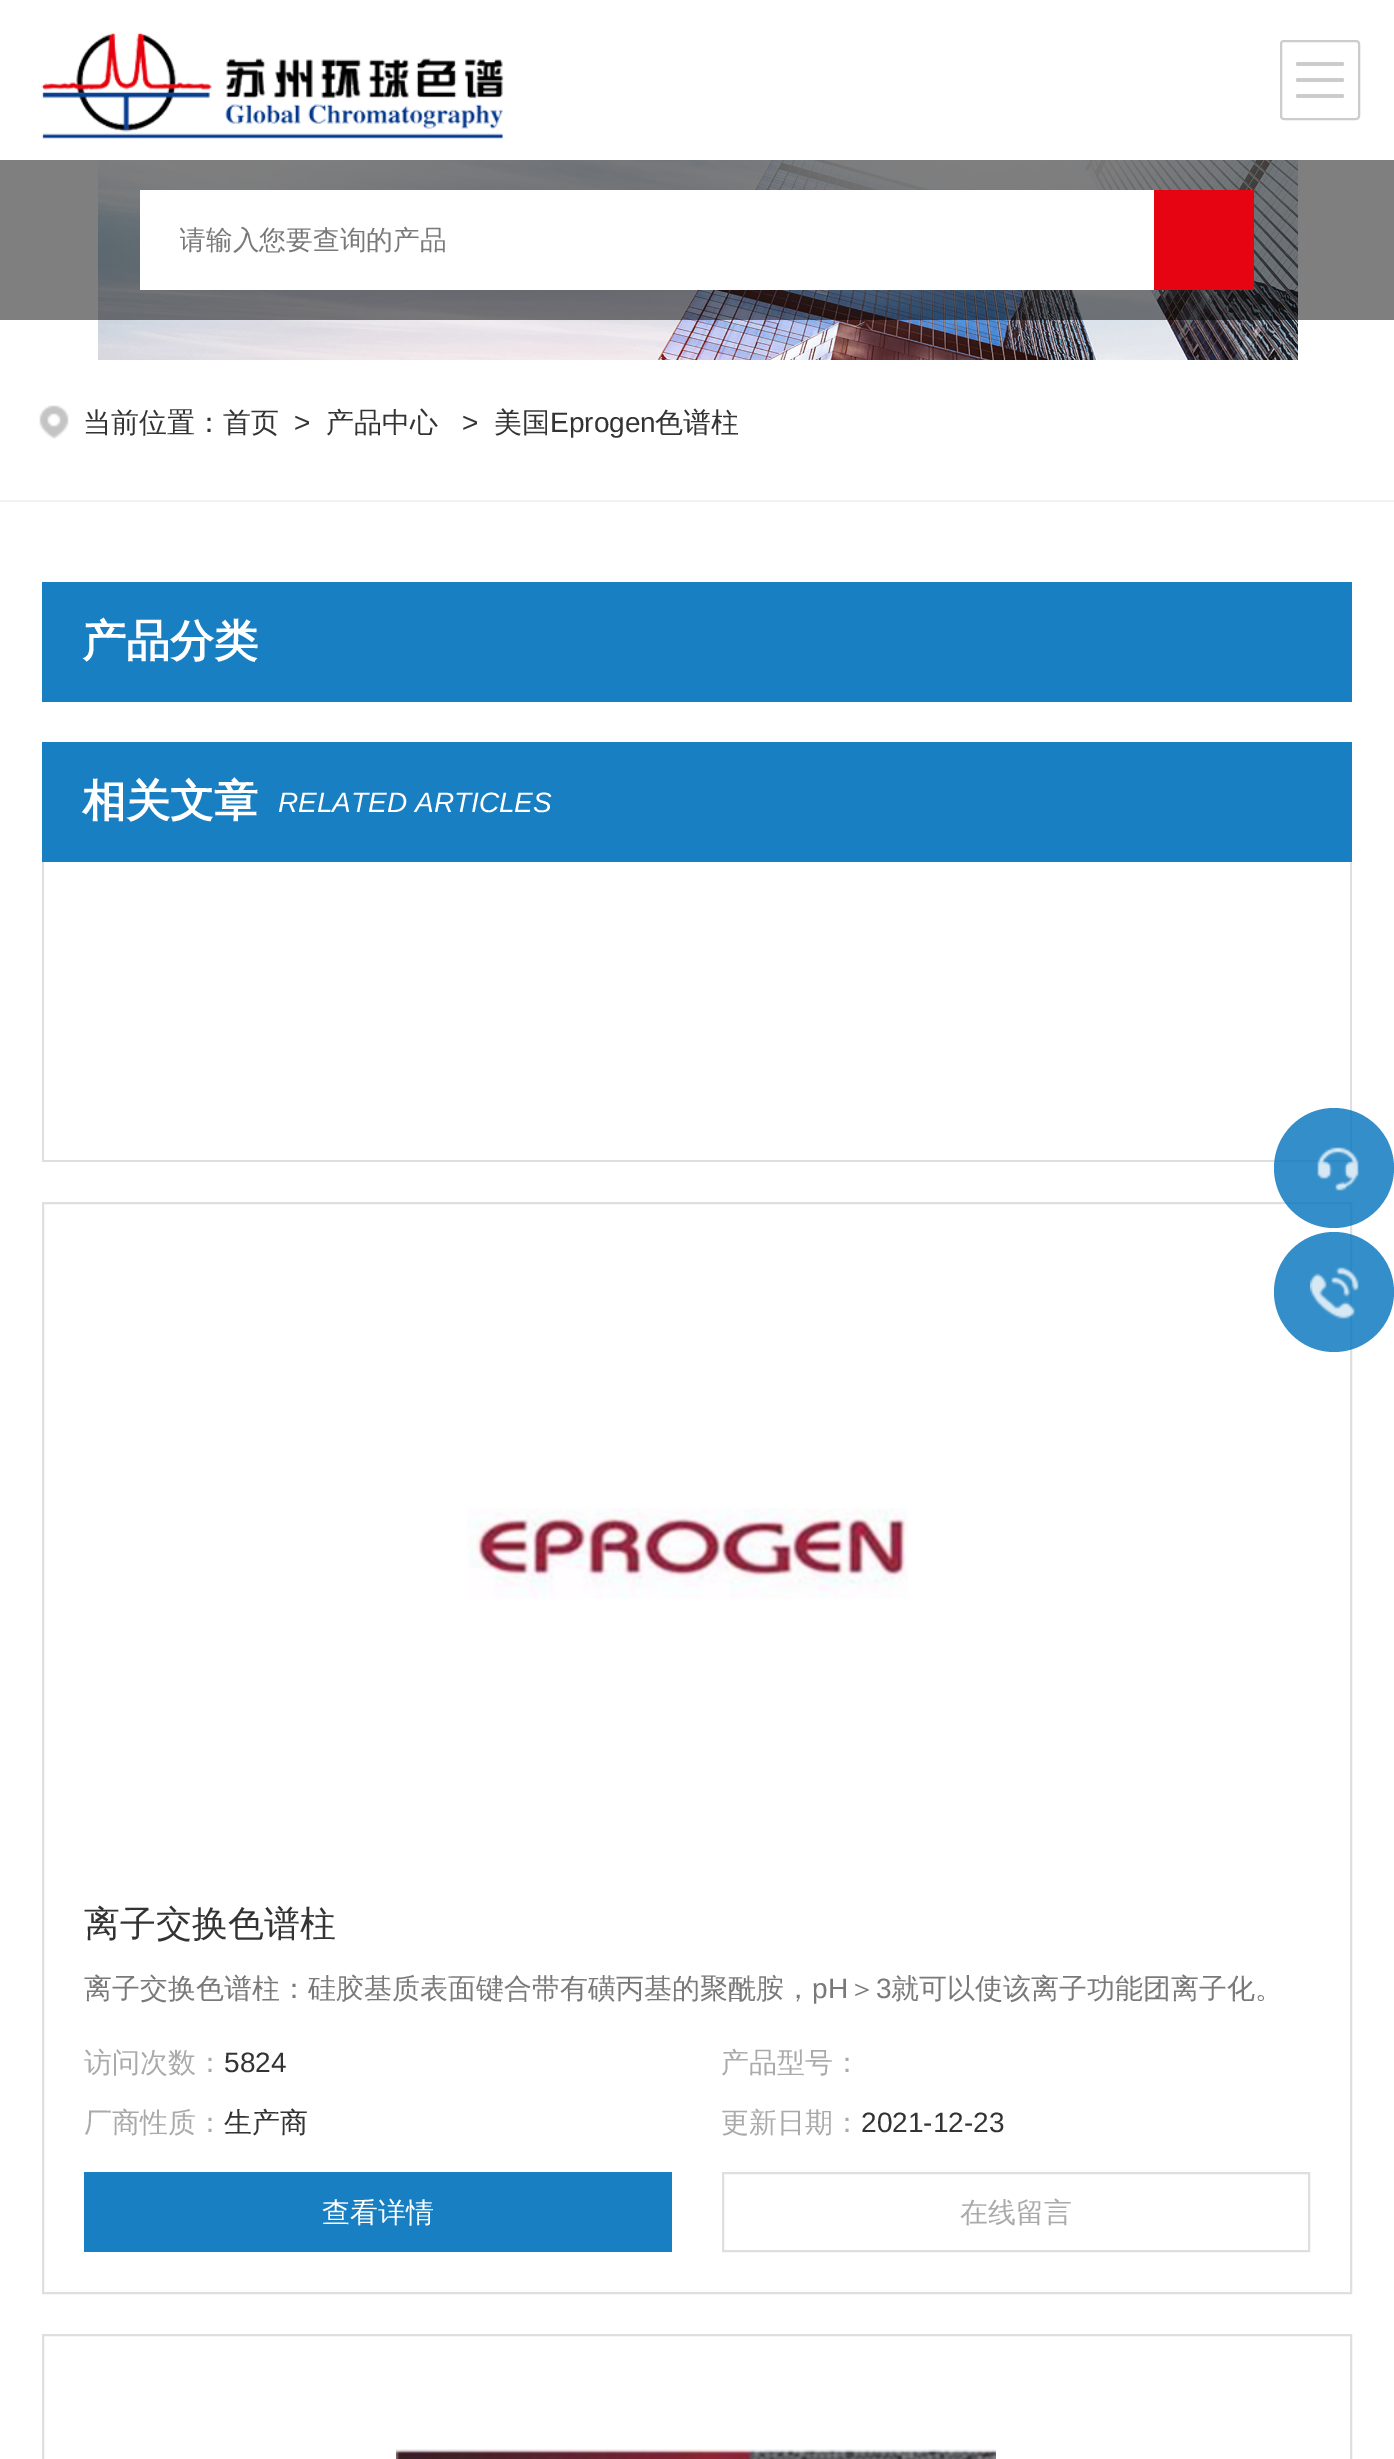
%!PS
<< /PageSize [1394 2459] /PageUsesTransparency true >> setpagedevice
/fl/fill load def
/st/stroke load def
/gs/gsave load def
/gr/grestore load def
/lw/setlinewidth load def
/co { dup -16 bitshift 255 div exch dup -8 bitshift 255 and 255 div exch 255 and 255 div setrgbcolor } def
/fn { [ exch dup neg 0 0 3 -1 roll 0 0 ] selectfont } def
/tx { co fn moveto show } def
/bx { co rectfill } def
/al { dup .setfillconstantalpha .setstrokeconstantalpha } def
/ci { newpath 0 360 arc closepath } def
/rr { 5 dict begin { /r /h /w /y /x } { exch def } forall
  x r add y moveto x w add y 2 copy h add r arct x w add y h add x 1 index r arct
  x y h add x y r arct x y 2 copy exch w add exch r arct closepath end } def
/im { 5 dict begin { /h /w /y /x /name } { exch def } forall
  gsave x y translate w h scale
  w h 8 [w 0 0 h 0 0] name (r) file false 3 colorimage grestore end } def
0 .pushpdf14devicefilter
0 2459 translate 1 -1 scale
4 setmiterlimit
0 0 1394 2459 16#FFFFFF bx
(media/1.raw) 98 160 1200 200 im
(media/2.raw) 41 32 463 107 im
16#CCCCCC co
2 lw
1281 41 78 78 3 rr st
1296 62 48 4 2 rr fl
1296 78 48 4 2 rr fl
1296 94 48 4 2 rr fl
0.5 al
0 160 1394 160 16#000000 bx
1 al
140 190 1014 100 16#FFFFFF bx
1154 190 100 100 16#E60413 bx
0 500 1394 2 16#F1F1F1 bx
(media/3.raw) 39 405 30 34 im
42 582 1310 120 16#187FC2 bx
42 742 1310 120 16#187FC2 bx
1350 862 2 300 16#DFDFDF bx
42 1160 1310 2 16#DFDFDF bx
42 862 2 300 16#DFDFDF bx
43 1203 1308 1090 rectstroke
(media/4.raw) 467 1508 441 91 im
84 2172 588 80 16#187FC2 bx
16#DFDFDF co
723 2173 586 78 rectstroke
43 2335 1308 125 rectstroke
(media/5.raw) 396 2449 600 10 im
0.8 al
16#0072BC co
1334 1168 60 ci fl
1 al
(media/6.raw) 1317 1147 42 44 im
0.8 al
1334 1292 60 ci fl
1 al
(media/7.raw) 1310 1267 49 52 im
gs
180 224 974 36 rectclip
(请输入您要查询的产品) 179 249 /WenQuanYiZenHei-Medium 26.75 16#797979 tx
gr
(当前位置：首页) 83 432 /WenQuanYiZenHei-Medium 28 16#333333 tx
(>) 294 432 /LiberationSans-Regular 28 16#333333 tx
(产品中心) 326 432 /WenQuanYiZenHei-Medium 28 16#333333 tx
(>) 462 432 /LiberationSans-Regular 28 16#333333 tx
(美国) 494 432 /WenQuanYiZenHei-Medium 28 16#333333 tx
(Eprogen) 550 432 /LiberationSans-Regular 28 16#333333 tx
(色谱柱) 655 432 /WenQuanYiZenHei-Medium 28 16#333333 tx
(产品分类) 82 656 /WenQuanYiZenHei-Bold 44 16#FFFFFF tx
(相关文章) 82 816 /WenQuanYiZenHei-Bold 44 16#FFFFFF tx
(RELATED ARTICLES) 278 812 /LiberationSans-Italic 28 16#FFFFFF tx
(离子交换色谱柱) 84 1936 /WenQuanYiZenHei-Medium 36 16#333333 tx
(离子交换色谱柱：硅胶基质表面键合带有磺丙基的聚酰胺，) 84 1998 /WenQuanYiZenHei-Medium 28 16#797979 tx
(pH) 812 1998 /LiberationSans-Regular 28 16#797979 tx
(＞) 848 1998 /WenQuanYiZenHei-Medium 28 16#797979 tx
(3) 876 1998 /LiberationSans-Regular 28 16#797979 tx
(就可以使该离子功能团离子化。) 891 1998 /WenQuanYiZenHei-Medium 28 16#797979 tx
(访问次数：) 84 2072 /WenQuanYiZenHei-Medium 28 16#AAAAAA tx
(5824) 224 2072 /LiberationSans-Regular 28 16#333333 tx
(产品型号：) 721 2072 /WenQuanYiZenHei-Medium 28 16#AAAAAA tx
(厂商性质：) 84 2132 /WenQuanYiZenHei-Medium 28 16#AAAAAA tx
(生产商) 224 2132 /WenQuanYiZenHei-Medium 28 16#333333 tx
(更新日期：) 721 2132 /WenQuanYiZenHei-Medium 28 16#AAAAAA tx
(2021-12-23) 861 2132 /LiberationSans-Regular 28 16#333333 tx
(查看详情) 322 2222 /WenQuanYiZenHei-Medium 28 16#FFFFFF tx
(在线留言) 960 2222 /WenQuanYiZenHei-Medium 28 16#AAAAAA tx
.poppdf14devicefilter showpage
